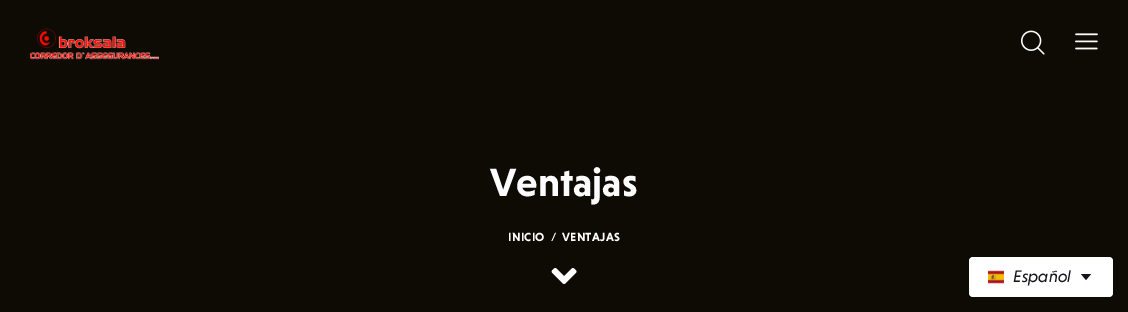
%!PS
<< /PageSize [1128 312] /PageUsesTransparency true >> setpagedevice
/mt/moveto load def
/li/lineto load def
/ct/curveto load def
/cp/closepath load def
/fl/fill load def
/co { dup -16 bitshift 255 div exch dup -8 bitshift 255 and 255 div exch 255 and 255 div setrgbcolor } def
/fn { [ exch dup neg 0 0 3 -1 roll 0 0 ] selectfont } def
/tx { co fn moveto show } def
/bx { co rectfill } def
/al { dup .setfillconstantalpha .setstrokeconstantalpha } def
/rr { 5 dict begin { /r /h /w /y /x } { exch def } forall
  x r add y moveto x w add y 2 copy h add r arct x w add y h add x 1 index r arct
  x y h add x y r arct x y 2 copy exch w add exch r arct closepath end } def
/im { 5 dict begin { /h /w /y /x /name } { exch def } forall
  gsave x y translate w h scale
  w h 8 [w 0 0 h 0 0] name (r) file false 3 colorimage grestore end } def
0 .pushpdf14devicefilter
0 312 translate 1 -1 scale
4 setmiterlimit
0 0 1128 312 16#0E0B05 bx
(media/1.raw) 30 28 129 32 im
(media/2.raw) 1021 30 24 25 im
(media/3.raw) 1075 33 23 17 im
(media/4.raw) 551 268 26 16 im
16#FFFFFF co
969 257 144 40 4 rr fl
0.1 al
973 258 mt 1109 258 li 1111 258 1113 260 1113 262 ct 1113 261 li 1113 259 1111 257 1109 257 ct 973 257 li 971 257 969 259 969 261 ct 969 262 li 969 260 971 258 973 258 ct cp fl
1 al
(media/5.raw) 988 270 16 14 im
16#14151A co
1081 274 mt 1086 280 li 1091 274 li cp fl
(Ventajas) 490 196 /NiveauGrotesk-Bold 40 16#FCFCFC tx
/NiveauGrotesk-Bold 12 fn
508 241 mt .25 0 (INICIO) ashow
551 241 mt .25 0 (/) ashow
562 241 mt .25 0 (VENTAJAS) ashow
(Español) 1013 282 /NiveauGrotesk-Italic 17 16#14151A tx
.poppdf14devicefilter showpage
